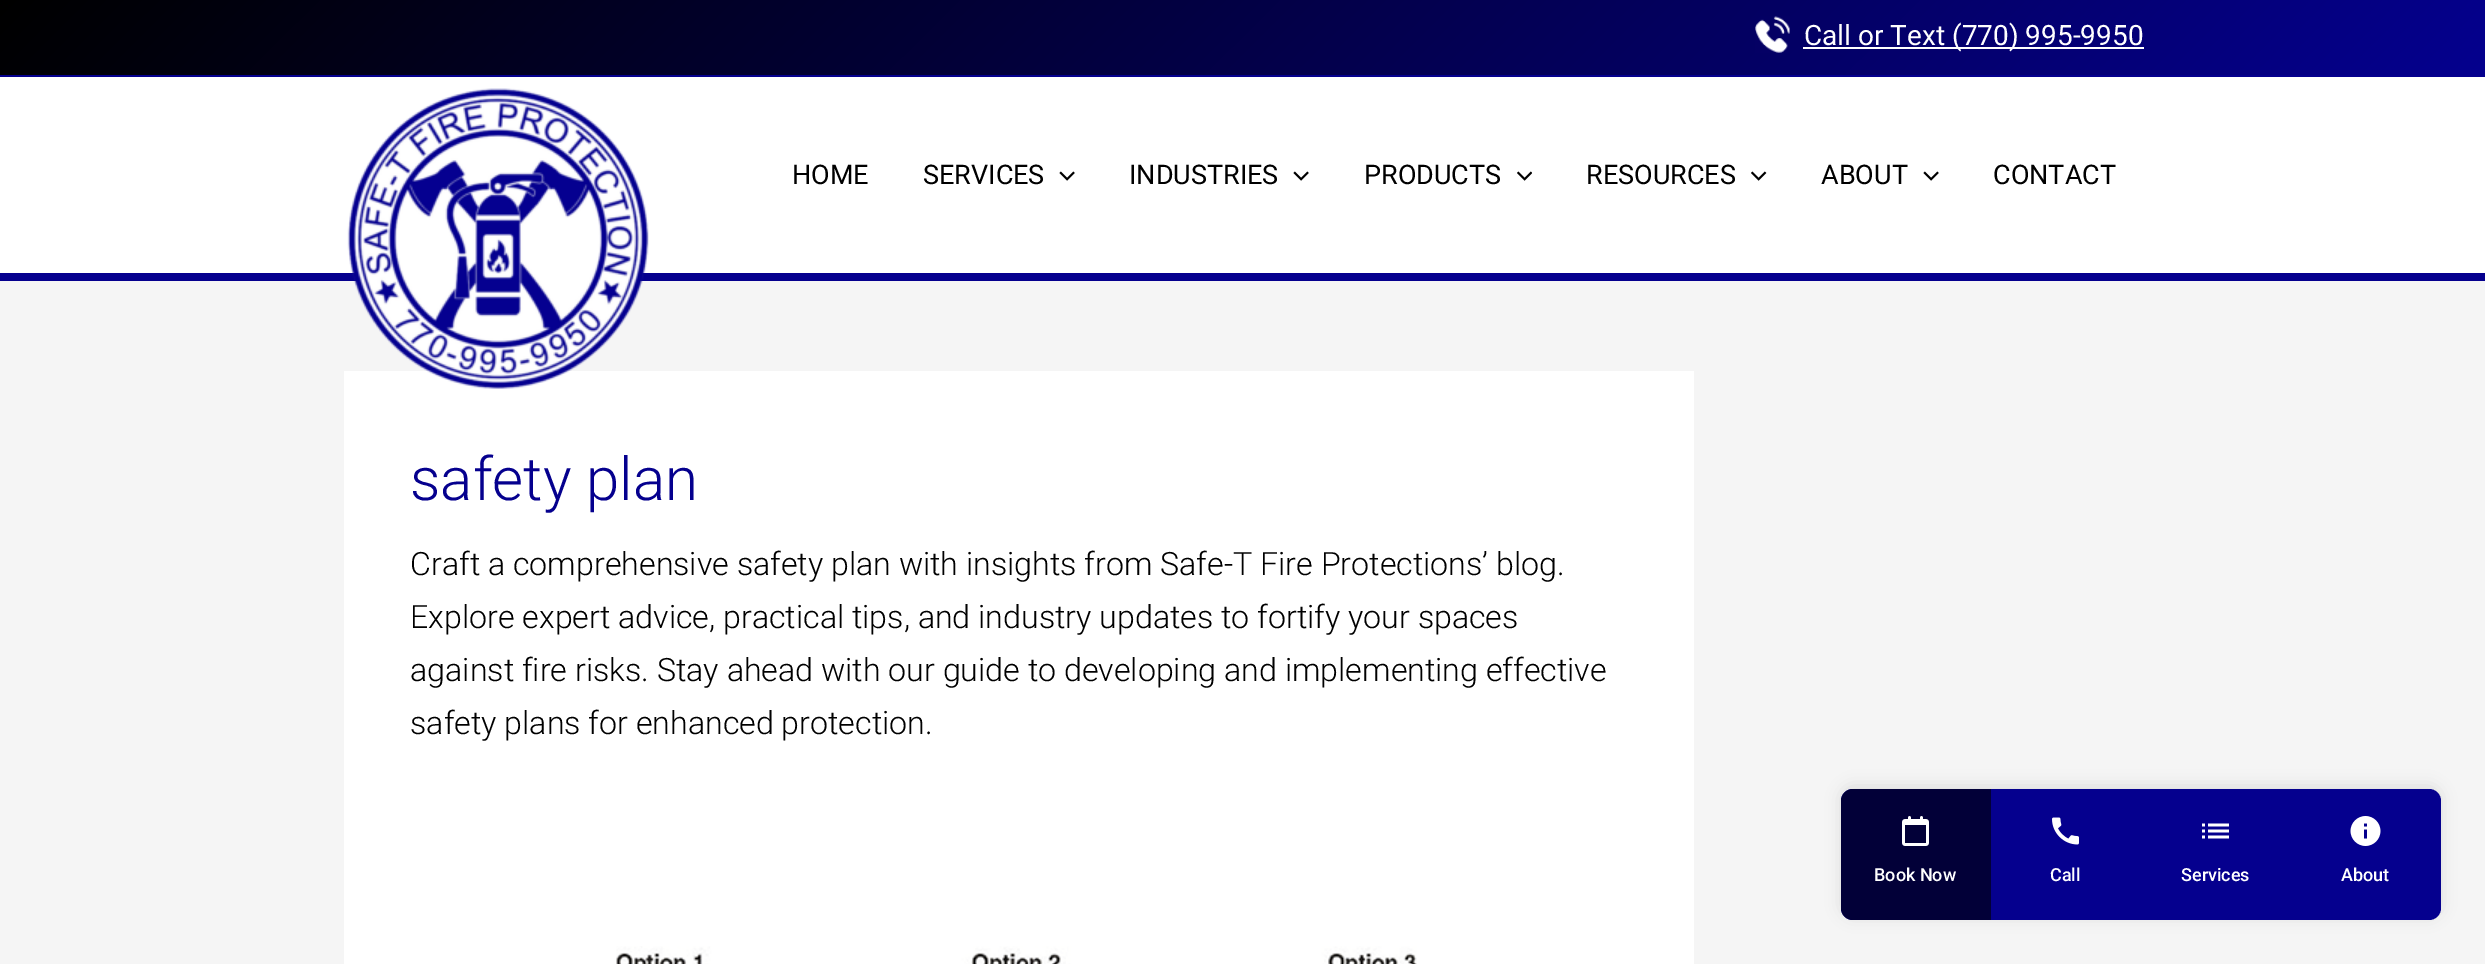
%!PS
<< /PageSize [2485 964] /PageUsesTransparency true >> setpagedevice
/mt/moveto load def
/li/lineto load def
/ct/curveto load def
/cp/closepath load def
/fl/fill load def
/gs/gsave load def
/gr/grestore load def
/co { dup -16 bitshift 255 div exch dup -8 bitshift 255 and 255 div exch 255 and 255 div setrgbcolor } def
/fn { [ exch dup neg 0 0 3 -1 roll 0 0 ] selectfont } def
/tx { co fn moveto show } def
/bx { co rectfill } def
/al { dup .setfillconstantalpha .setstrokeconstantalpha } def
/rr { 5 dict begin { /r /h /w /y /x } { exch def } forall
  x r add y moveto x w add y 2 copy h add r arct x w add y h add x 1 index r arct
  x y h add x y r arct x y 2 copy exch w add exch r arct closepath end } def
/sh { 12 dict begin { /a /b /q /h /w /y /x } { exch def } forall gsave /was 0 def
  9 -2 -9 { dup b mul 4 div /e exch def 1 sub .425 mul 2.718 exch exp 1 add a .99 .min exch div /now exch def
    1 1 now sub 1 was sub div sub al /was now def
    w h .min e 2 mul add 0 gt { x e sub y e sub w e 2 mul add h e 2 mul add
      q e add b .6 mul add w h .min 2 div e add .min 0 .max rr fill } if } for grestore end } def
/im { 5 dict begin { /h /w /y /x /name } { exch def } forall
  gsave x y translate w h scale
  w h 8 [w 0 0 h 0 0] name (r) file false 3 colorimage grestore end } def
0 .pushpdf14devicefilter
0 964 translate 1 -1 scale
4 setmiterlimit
0 0 2485 964 16#F5F5F5 bx
gs 0 0 mt 2485 0 li 2485 75 li 0 75 li cp clip newpath
<< /ShadingType 2 /ColorSpace /DeviceRGB /Coords [603 -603 1883 678] /Extend [true true] /Function << /FunctionType 2 /Domain [0 1] /C0 [0 0 0] /C1 [.02 0 .557] /N 1 >> >> shfill gr
0 75 2485 2 16#05008E bx
(media/1.raw) 1755 16 35 37 im
1803 47 341 2 16#FFFFFF bx
0 77 2485 196 16#FFFFFF bx
0 273 2485 8 16#05008E bx
344 371 1350 593 16#FFFFFF bx
(media/2.raw) 347 88 302 301 im
(media/3.raw) 1059 171 16 10 im
(media/3.raw) 1293 171 16 10 im
(media/4.raw) 1517 171 15 10 im
(media/5.raw) 1751 171 16 10 im
(media/3.raw) 1923 171 16 10 im
(media/6.raw) 616 946 801 18 im
16#000000 co
1841 786 600 131 12 7.5 .1 sh
16#05008E co
1841 789 600 131 12 rr fl
16#020038 co
1853 789 mt 1991 789 li 1991 920 li 1853 920 li 1846.5 920 1841 914.5 1841 908 ct 1841 801 li 1841 794.5 1846.5 789 1853 789 ct cp fl
(media/7.raw) 1902 816 27 30 im
(media/8.raw) 2052 817 27 28 im
(media/9.raw) 2202 823 27 16 im
(media/10.raw) 2350 816 31 30 im
(Call or Text \(770\) 995-9950) 1804 45 /Roboto-Regular 28 16#FFFFFF tx
(HOME) 792 184 /Roboto-Regular 27 16#000000 tx
(SERVICES) 923 184 /Roboto-Regular 27 16#000000 tx
(INDUSTRIES) 1129 184 /Roboto-Regular 27 16#000000 tx
(PRODUCTS) 1364 184 /Roboto-Regular 27 16#000000 tx
(RESOURCES) 1586 184 /Roboto-Regular 27 16#000000 tx
(ABOUT) 1821 184 /Roboto-Regular 27 16#000000 tx
(CONTACT) 1993 184 /Roboto-Regular 27 16#000000 tx
(safety plan) 410 500 /Roboto-Light 60 16#05008E tx
(Craft a comprehensive safety plan with insights from Safe-T Fire Protections’ blog.) 410 575 /Roboto-Light 32.15 16#000000 tx
(Explore expert advice, practical tips, and industry updates to fortify your spaces) 410 628 /Roboto-Light 32.15 16#000000 tx
(against fire risks. Stay ahead with our guide to developing and implementing effective) 410 681 /Roboto-Light 32.15 16#000000 tx
(safety plans for enhanced protection.) 410 734 /Roboto-Light 32.15 16#000000 tx
(Book Now) 1874 881 /Roboto-Medium 18 16#FFFFFF tx
(Call) 2050 881 /Roboto-Medium 18 16#FFFFFF tx
(Services) 2181 881 /Roboto-Medium 18 16#FFFFFF tx
(About) 2341 881 /Roboto-Medium 18 16#FFFFFF tx
.poppdf14devicefilter showpage
